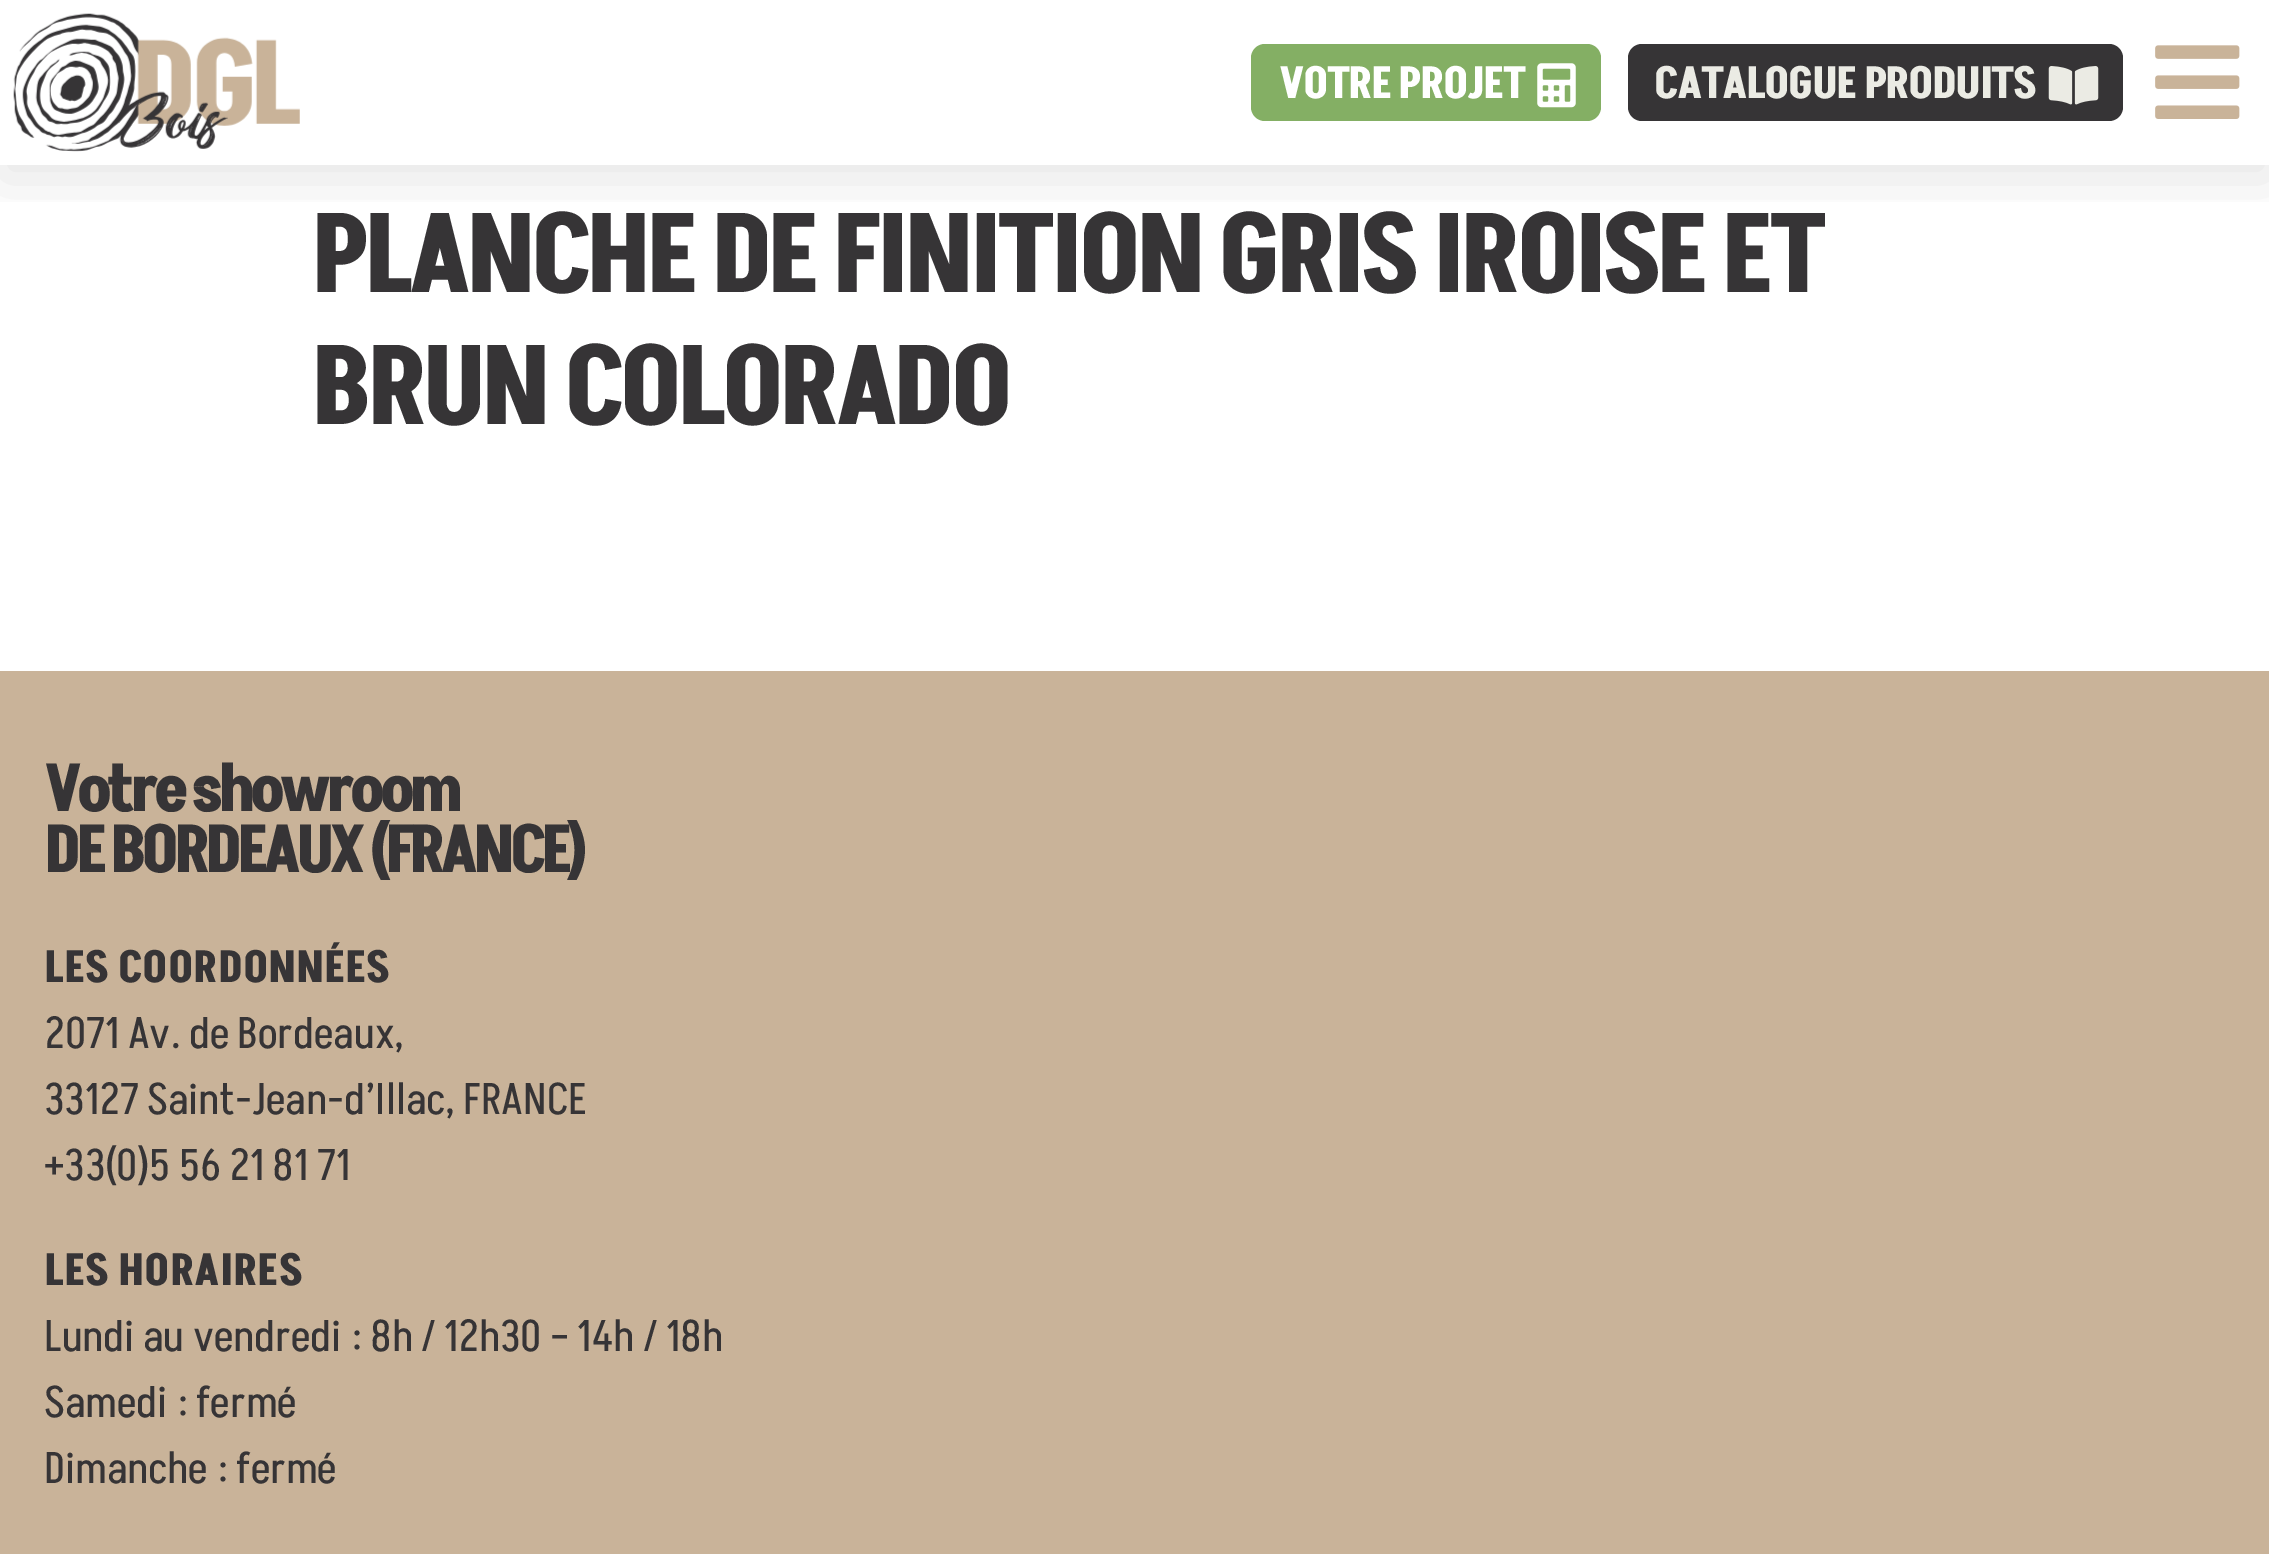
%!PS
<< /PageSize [2269 1554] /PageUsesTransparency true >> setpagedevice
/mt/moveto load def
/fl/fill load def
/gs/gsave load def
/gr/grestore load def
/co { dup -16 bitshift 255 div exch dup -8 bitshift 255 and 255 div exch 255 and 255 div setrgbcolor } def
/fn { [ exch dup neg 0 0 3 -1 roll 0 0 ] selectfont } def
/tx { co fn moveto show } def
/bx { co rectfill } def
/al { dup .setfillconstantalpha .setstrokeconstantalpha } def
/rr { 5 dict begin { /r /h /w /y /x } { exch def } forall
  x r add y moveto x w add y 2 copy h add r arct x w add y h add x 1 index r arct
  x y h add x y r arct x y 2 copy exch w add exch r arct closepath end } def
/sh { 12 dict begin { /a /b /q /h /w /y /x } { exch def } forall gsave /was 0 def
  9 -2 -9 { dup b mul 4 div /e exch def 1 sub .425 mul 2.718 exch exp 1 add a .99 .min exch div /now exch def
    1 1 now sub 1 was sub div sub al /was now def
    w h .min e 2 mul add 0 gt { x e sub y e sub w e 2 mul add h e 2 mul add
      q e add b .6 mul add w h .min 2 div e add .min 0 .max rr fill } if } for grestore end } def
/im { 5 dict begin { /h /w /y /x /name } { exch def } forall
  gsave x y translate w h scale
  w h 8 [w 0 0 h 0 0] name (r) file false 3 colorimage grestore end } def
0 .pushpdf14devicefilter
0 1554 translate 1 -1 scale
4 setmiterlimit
0 0 2269 1554 16#FFFFFF bx
gs
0 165 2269 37 rectclip
16#000000 co
0 14 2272 165 0 27.5 .1 sh
gr
(media/1.raw) 13 13 287 139 im
16#84AF64 co
1251 44 350 77 14 rr fl
(media/2.raw) 1537 63 39 45 im
16#363436 co
1628 44 495 77 14 rr fl
(media/3.raw) 2048 66 51 39 im
(media/4.raw) 2155 45 85 74 im
0 671 2269 883 16#C9B399 bx
/Akshar-Bold 44 fn
16#FFFFFF co
1279 98 mt -1.6 0 (VOTRE PROJET) ashow
16#EBEBE4 co
1654 98 mt -1.6 0 (CATALOGUE PRODUITS) ashow
/Akshar-Bold 110 fn
16#363436 co
311 292 mt -5.5 0 (PLANCHE DE FINITION GRIS IROISE ET) ashow
311 424 mt -5.5 0 (BRUN COLORADO) ashow
/Akshar-Bold 66 fn
44 811 mt -5.5 0 (Votre showroom) ashow
44 872 mt -5.5 0 (DE BORDEAUX \(FRANCE\)) ashow
(LES COORDONNÉES) 44 982 /Akshar-Bold 44 16#363436 tx
(2071 Av. de Bordeaux,) 44 1048 /Akshar-Regular 44 16#363436 tx
(33127 Saint-Jean-d’Illac, FRANCE) 44 1114 /Akshar-Regular 44 16#363436 tx
(+33\(0\)5 56 21 81 71) 44 1180 /Akshar-Regular 44 16#363436 tx
(LES HORAIRES) 44 1285 /Akshar-Bold 44 16#363436 tx
(Lundi au vendredi : 8h / 12h30 – 14h / 18h) 44 1351 /Akshar-Regular 44 16#363436 tx
(Samedi : fermé) 44 1417 /Akshar-Regular 44 16#363436 tx
(Dimanche : fermé) 44 1483 /Akshar-Regular 44 16#363436 tx
.poppdf14devicefilter showpage
